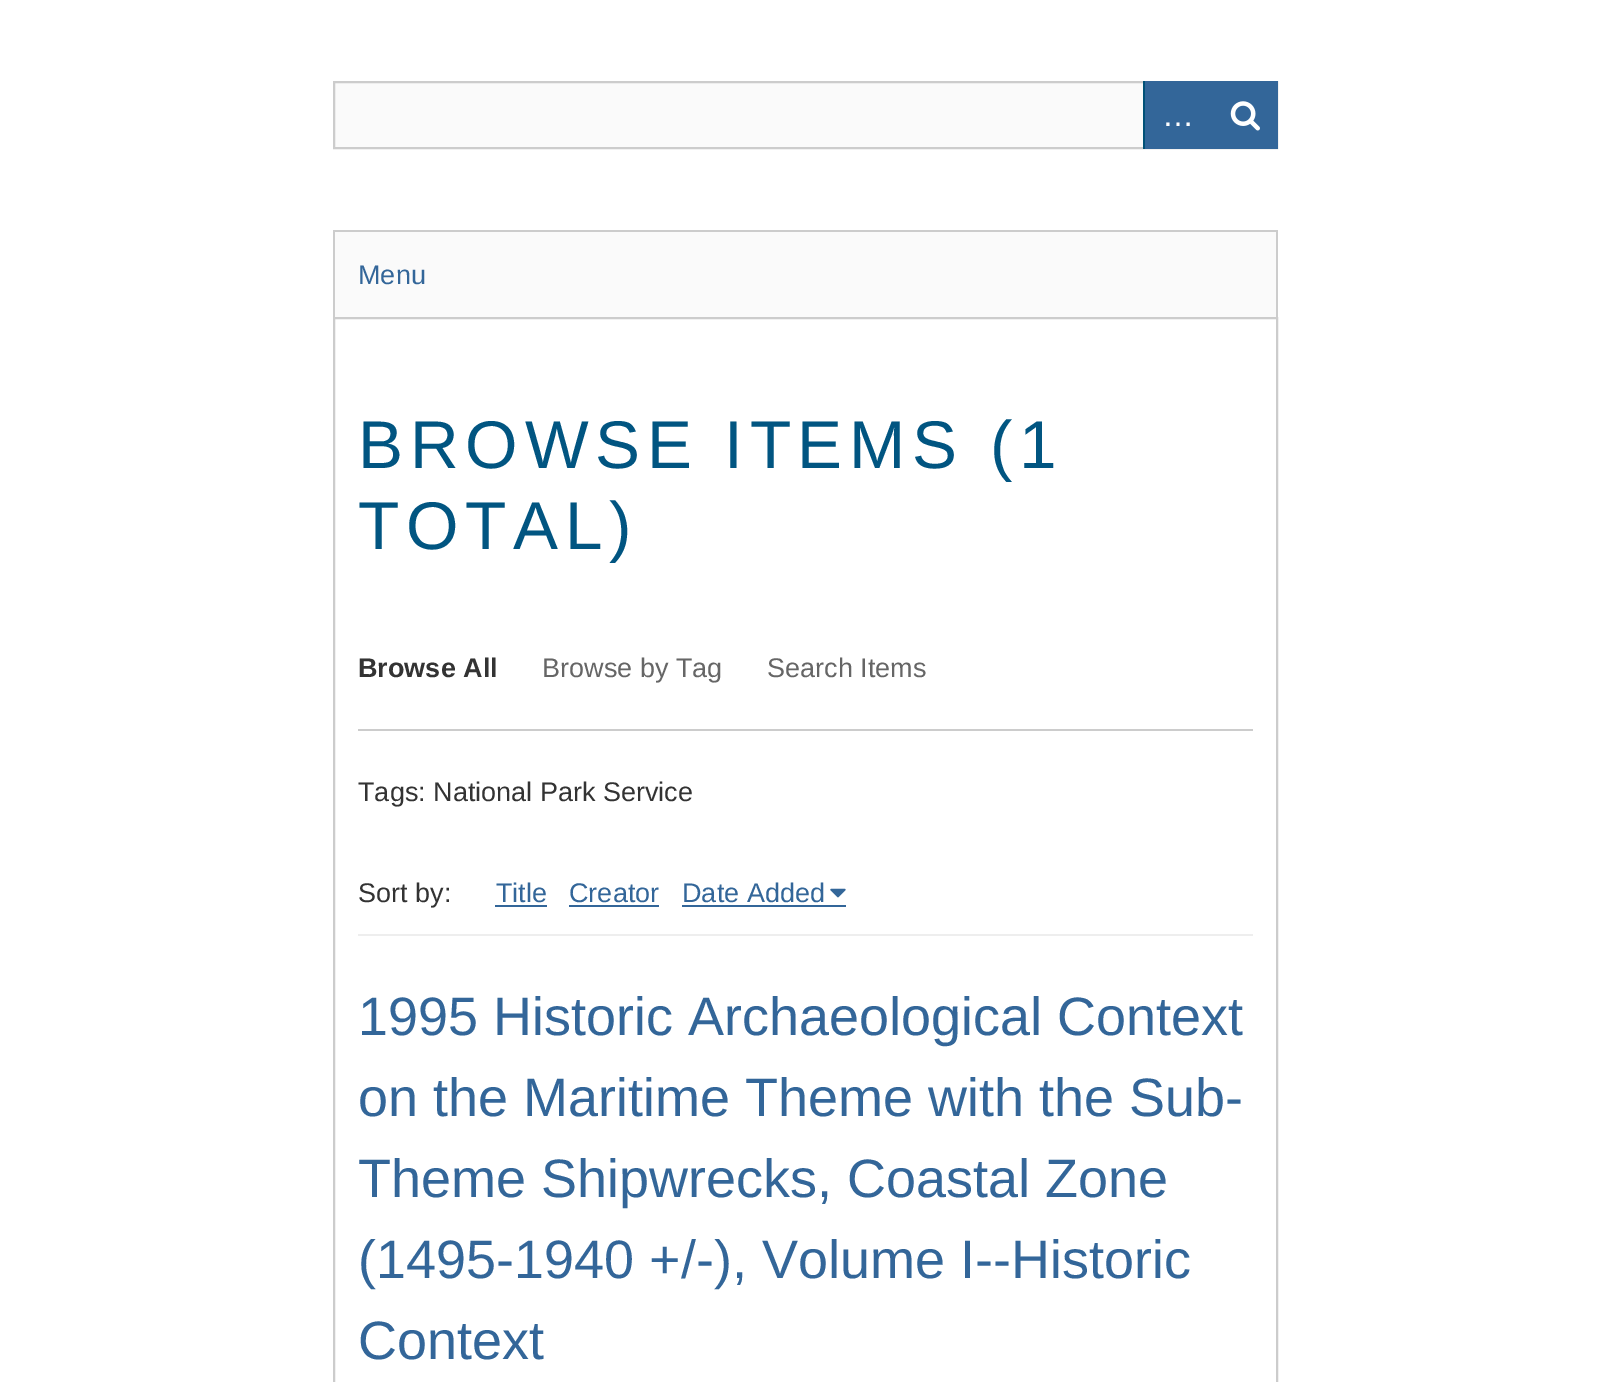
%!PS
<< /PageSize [1610 1382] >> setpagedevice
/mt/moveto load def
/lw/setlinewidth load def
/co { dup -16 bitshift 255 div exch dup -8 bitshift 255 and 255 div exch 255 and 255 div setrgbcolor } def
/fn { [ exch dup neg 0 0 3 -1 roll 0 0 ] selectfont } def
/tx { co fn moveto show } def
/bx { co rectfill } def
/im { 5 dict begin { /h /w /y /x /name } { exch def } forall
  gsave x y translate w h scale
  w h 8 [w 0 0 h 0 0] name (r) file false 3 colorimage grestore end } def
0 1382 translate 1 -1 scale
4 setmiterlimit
0 0 1610 1382 16#FFFFFF bx
335 83 808 64 16#FAFAFA bx
16#CCCCCC co
2 lw
334 82 943 66 rectstroke
1143 81 2 68 16#005177 bx
1145 81 133 68 16#336699 bx
(media/1.raw) 1230 101 30 30 im
335 232 941 85 16#FAFAFA bx
333 230 945 2 16#CCCCCC bx
1276 230 2 87 16#CCCCCC bx
333 230 2 87 16#CCCCCC bx
334 318 943 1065 rectstroke
358 729 895 2 16#CCCCCC bx
495 905 52 2 16#336699 bx
569 905 90 2 16#336699 bx
682 905 164 2 16#336699 bx
(media/2.raw) 830 888 16 10 im
358 934 895 2 16#EEEEEE bx
(…) 1162 126 /LiberationSans-Regular 32 16#FFFFFF tx
(Menu) 358 284 /LiberationSans-Regular 27 16#336699 tx
/LiberationSans-Regular 67.5 fn
16#015581 co
358 468 mt 6.75 0 (BROWSE ITEMS \(1) ashow
358 549 mt 6.75 0 (TOTAL\)) ashow
(Browse All) 358 677 /LiberationSans-Bold 27 16#333333 tx
(Browse by Tag) 542 677 /LiberationSans-Regular 27 16#666666 tx
(Search Items) 767 677 /LiberationSans-Regular 27 16#666666 tx
(Tags: National Park Service) 358 801 /LiberationSans-Regular 27 16#333333 tx
(Sort by:) 358 902 /LiberationSans-Regular 27 16#333333 tx
(Title) 496 902 /LiberationSans-Regular 27 16#336699 tx
(Creator) 569 902 /LiberationSans-Regular 27 16#336699 tx
(Date Added) 682 902 /LiberationSans-Regular 27 16#336699 tx
(1995 Historic Archaeological Context) 358 1035 /LiberationSans-Regular 54 16#336699 tx
(on the Maritime Theme with the Sub-) 358 1116 /LiberationSans-Regular 54 16#336699 tx
(Theme Shipwrecks, Coastal Zone) 358 1197 /LiberationSans-Regular 54 16#336699 tx
(\(1495-1940 +/-\), Volume I--Historic) 358 1278 /LiberationSans-Regular 54 16#336699 tx
(Context) 358 1359 /LiberationSans-Regular 54 16#336699 tx
showpage
